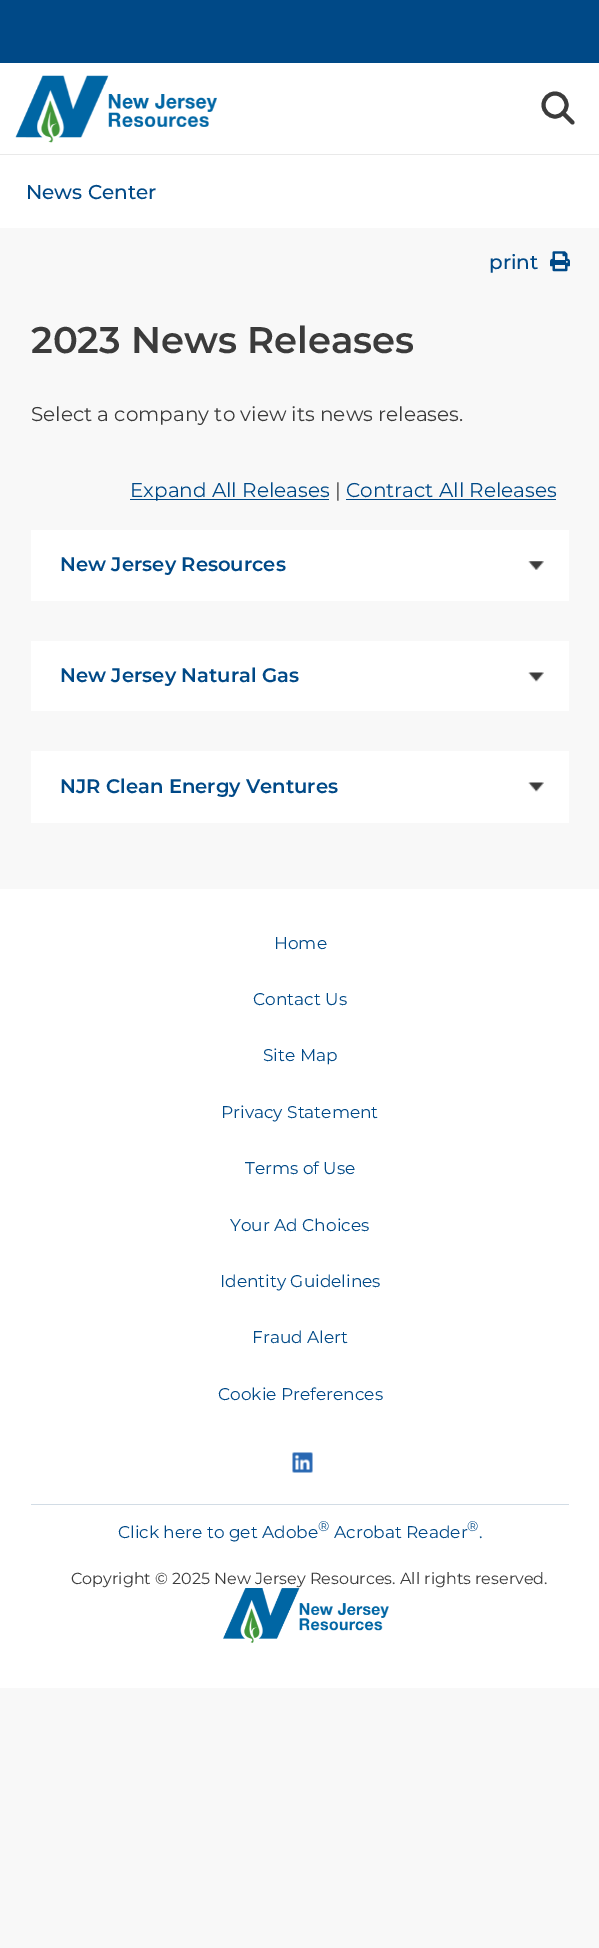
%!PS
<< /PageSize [599 1948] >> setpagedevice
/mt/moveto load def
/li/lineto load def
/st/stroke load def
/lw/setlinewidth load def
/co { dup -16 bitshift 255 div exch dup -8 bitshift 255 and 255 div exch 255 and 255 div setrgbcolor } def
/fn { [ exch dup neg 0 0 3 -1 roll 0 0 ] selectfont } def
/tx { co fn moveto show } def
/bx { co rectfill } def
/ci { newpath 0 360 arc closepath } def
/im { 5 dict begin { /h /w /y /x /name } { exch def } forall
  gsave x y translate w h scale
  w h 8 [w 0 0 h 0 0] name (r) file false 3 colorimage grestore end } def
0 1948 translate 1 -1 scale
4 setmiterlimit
0 0 599 1948 16#F8F8F8 bx
0 63 599 91 16#FFFFFF bx
0 154 599 1 16#E9E9E9 bx
0 0 599 63 16#004987 bx
(media/1.raw) 15 75 202 68 im
16#3B3B3B co
3.9 lw
555 105 11.5 ci st
1 setlinecap
563 113 mt 572.5 122.5 li st
0 155 599 73 16#FFFFFF bx
(media/2.raw) 550 251 20 21 im
130 499 199 1 16#004987 bx
346 499 210 1 16#004987 bx
31 530 538 71 16#FFFFFF bx
(media/3.raw) 528 561 16 9 im
31 641 538 70 16#FFFFFF bx
(media/4.raw) 528 672 16 10 im
31 751 538 72 16#FFFFFF bx
(media/4.raw) 528 782 16 10 im
0 889 599 799 16#FFFFFF bx
31 1504 538 1 16#D2DCE5 bx
(media/5.raw) 292 1452 21 21 im
(media/6.raw) 223 1588 166 55 im
(News Center) 26 199 /Montserrat-Medium 20 16#004987 tx
(print) 489 269 /Montserrat-Medium 20 16#004987 tx
(2023 News Releases) 31 353 /Montserrat-SemiBold 37 16#3B3B3B tx
(Select a company to view its news releases.) 31 421 /Montserrat-Regular 20 16#3B3B3B tx
(Expand All Releases) 130 497 /Montserrat-Regular 20 16#004987 tx
(|) 335 497 /Montserrat-Regular 20 16#3B3B3B tx
(Contract All Releases) 346 497 /Montserrat-Regular 20 16#004987 tx
(New Jersey Resources) 60 571 /Montserrat-SemiBold 19.6 16#004987 tx
(New Jersey Natural Gas) 60 682 /Montserrat-SemiBold 19.6 16#004987 tx
(NJR Clean Energy Ventures) 60 793 /Montserrat-SemiBold 19.6 16#004987 tx
(Home) 274 949 /Montserrat-Regular 17 16#004987 tx
(Contact Us) 253 1005 /Montserrat-Regular 17 16#004987 tx
(Site Map) 263 1061 /Montserrat-Regular 17 16#004987 tx
(Privacy Statement) 221 1118 /Montserrat-Regular 17 16#004987 tx
(Terms of Use) 245 1174 /Montserrat-Regular 17 16#004987 tx
(Your Ad Choices) 230 1231 /Montserrat-Regular 17 16#004987 tx
(Identity Guidelines) 220 1287 /Montserrat-Regular 17 16#004987 tx
(Fraud Alert) 252 1343 /Montserrat-Regular 17 16#004987 tx
(Cookie Preferences) 218 1400 /Montserrat-Regular 17 16#004987 tx
(Click here to get Adobe) 118 1538 /Montserrat-Regular 17 16#004987 tx
(®) 318 1531 /Montserrat-Regular 14 16#004987 tx
(Acrobat Reader) 334 1538 /Montserrat-Regular 17 16#004987 tx
(®) 467 1531 /Montserrat-Regular 14 16#004987 tx
(.) 479 1538 /Montserrat-Regular 17 16#004987 tx
(Copyright © 2025 New Jersey Resources. All rights reserved.) 71 1584 /Montserrat-Regular 16 16#3B3B3B tx
showpage
